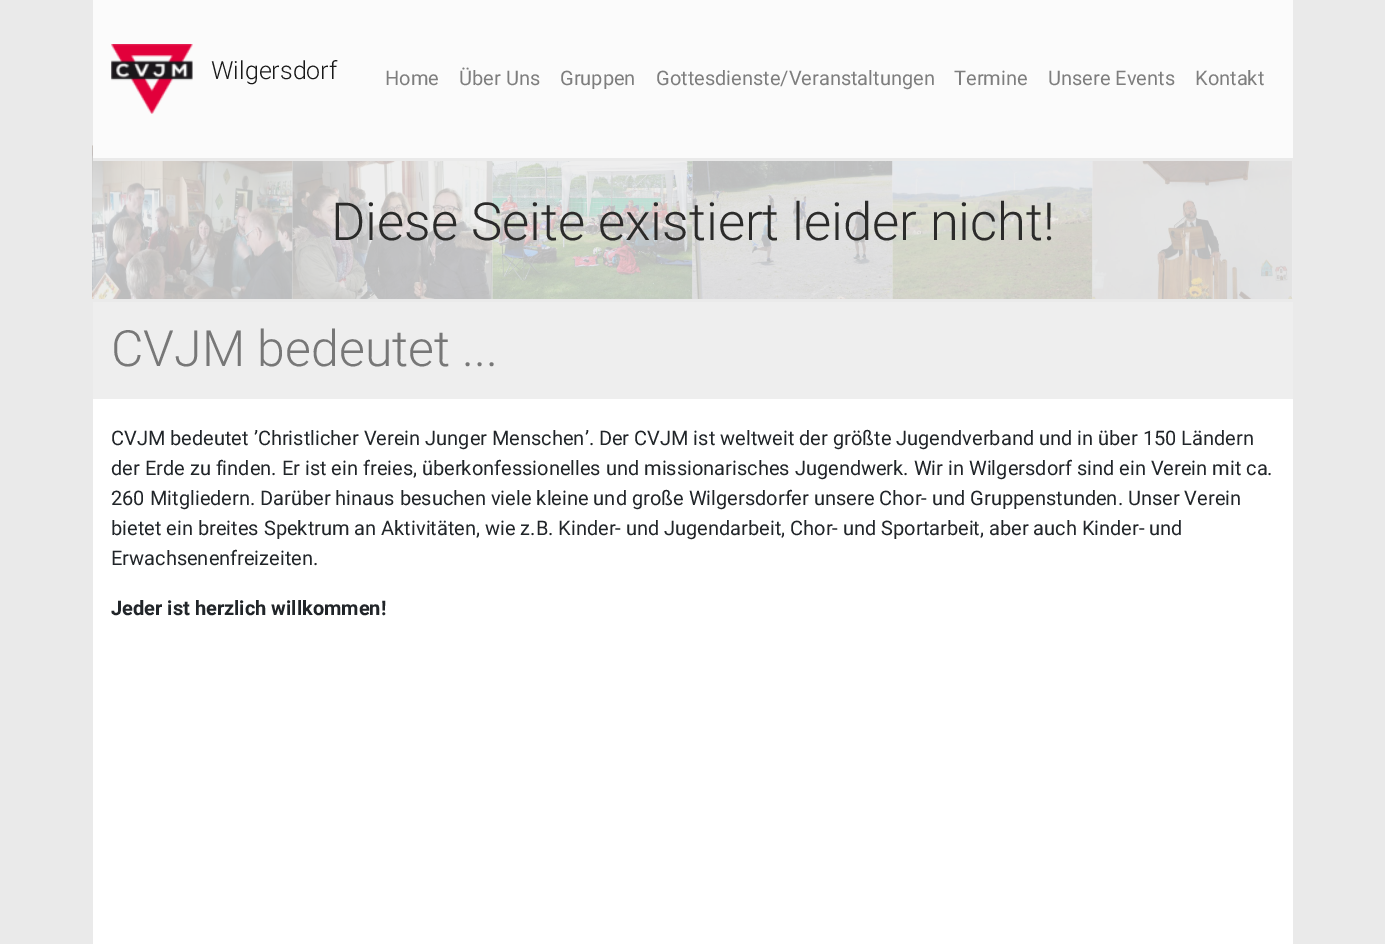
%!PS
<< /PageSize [1385 944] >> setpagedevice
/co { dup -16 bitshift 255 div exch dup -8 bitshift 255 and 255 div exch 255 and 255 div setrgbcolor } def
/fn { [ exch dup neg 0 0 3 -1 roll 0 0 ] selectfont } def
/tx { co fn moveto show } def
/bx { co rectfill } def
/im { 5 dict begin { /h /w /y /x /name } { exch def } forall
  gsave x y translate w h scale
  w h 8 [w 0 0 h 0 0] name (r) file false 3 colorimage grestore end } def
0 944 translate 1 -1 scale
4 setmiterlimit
0 0 1385 944 16#EAEAEA bx
93 399 1200 545 16#FFFFFF bx
93 302 1200 97 16#EEEEEE bx
292 161 1001 138 16#EEEEEE bx
(media/2.raw) 92 145 201 154 im
93 0 1200 158 16#FBFBFB bx
93 158 200 3 16#EAEAEA bx
(media/1.raw) 111 44 82 70 im
(media/3.raw) 292 161 201 138 im
(media/4.raw) 492 161 201 138 im
(media/5.raw) 692 161 201 138 im
(media/6.raw) 892 161 201 138 im
(media/7.raw) 1092 161 201 138 im
(Wilgersdorf) 211 79 /Roboto-Light 25 16#191919 tx
(Home) 385 85 /Roboto-Regular 20 16#7E7E7E tx
(Über Uns) 459 85 /Roboto-Regular 20 16#7E7E7E tx
(Gruppen) 560 85 /Roboto-Regular 20 16#7E7E7E tx
(Gottesdienste/Veranstaltungen) 656 85 /Roboto-Regular 20 16#7E7E7E tx
(Termine) 954 85 /Roboto-Regular 20 16#7E7E7E tx
(Unsere Events) 1048 85 /Roboto-Regular 20 16#7E7E7E tx
(Kontakt) 1195 85 /Roboto-Regular 20 16#7E7E7E tx
(Diese Seite existiert leider nicht!) 331 240 /Roboto-Light 52.5 16#2B2B2A tx
(CVJM bedeutet ...) 111 366 /Roboto-Light 50 16#777777 tx
(CVJM bedeutet ’Christlicher Verein Junger Menschen’. Der CVJM ist weltweit der größte Jugendverband und in über 150 Ländern) 111 445 /Roboto-Regular 20 16#212529 tx
(der Erde zu finden. Er ist ein freies, überkonfessionelles und missionarisches Jugendwerk. Wir in Wilgersdorf sind ein Verein mit ca.) 111 475 /Roboto-Regular 20 16#212529 tx
(260 Mitgliedern. Darüber hinaus besuchen viele kleine und große Wilgersdorfer unsere Chor- und Gruppenstunden. Unser Verein) 111 505 /Roboto-Regular 20 16#212529 tx
(bietet ein breites Spektrum an Aktivitäten, wie z.B. Kinder- und Jugendarbeit, Chor- und Sportarbeit, aber auch Kinder- und) 111 535 /Roboto-Regular 20 16#212529 tx
(Erwachsenenfreizeiten.) 111 565 /Roboto-Regular 20 16#212529 tx
(Jeder ist herzlich willkommen!) 111 615 /Roboto-Bold 20 16#212529 tx
showpage
